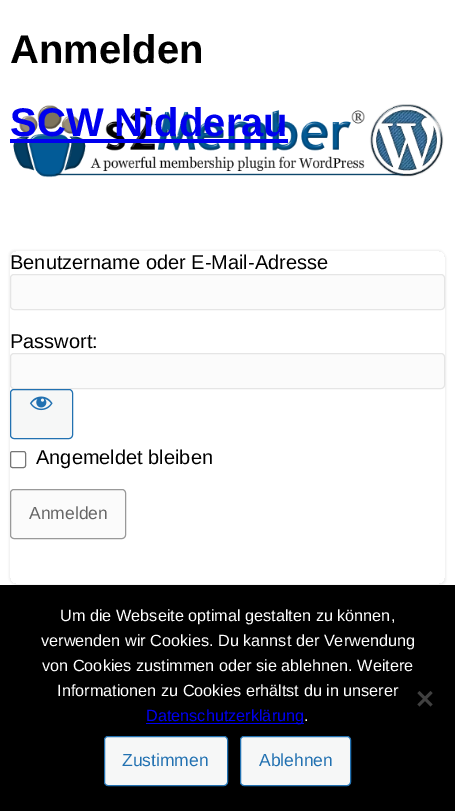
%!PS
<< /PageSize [455 811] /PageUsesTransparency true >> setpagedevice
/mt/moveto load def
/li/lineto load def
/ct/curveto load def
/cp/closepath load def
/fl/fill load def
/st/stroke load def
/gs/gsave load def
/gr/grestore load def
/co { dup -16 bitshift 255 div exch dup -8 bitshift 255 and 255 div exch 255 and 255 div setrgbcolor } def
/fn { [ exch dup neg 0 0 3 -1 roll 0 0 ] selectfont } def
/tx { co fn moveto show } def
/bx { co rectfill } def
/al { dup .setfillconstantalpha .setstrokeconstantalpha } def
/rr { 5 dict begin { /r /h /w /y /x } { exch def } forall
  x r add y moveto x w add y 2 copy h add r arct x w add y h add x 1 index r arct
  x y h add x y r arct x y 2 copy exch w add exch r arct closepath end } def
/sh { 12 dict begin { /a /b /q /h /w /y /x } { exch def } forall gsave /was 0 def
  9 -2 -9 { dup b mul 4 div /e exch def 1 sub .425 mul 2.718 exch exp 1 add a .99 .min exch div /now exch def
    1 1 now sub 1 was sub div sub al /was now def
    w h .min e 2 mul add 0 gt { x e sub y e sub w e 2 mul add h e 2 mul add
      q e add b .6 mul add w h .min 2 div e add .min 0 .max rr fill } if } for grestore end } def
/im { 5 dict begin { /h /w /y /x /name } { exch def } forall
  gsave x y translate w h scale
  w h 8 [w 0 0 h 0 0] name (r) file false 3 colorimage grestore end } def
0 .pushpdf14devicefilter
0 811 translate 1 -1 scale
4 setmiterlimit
0 0 455 811 16#FFFFFF bx
(media/1.raw) 13 104 431 74 im
10 139 278 4 16#0000EE bx
gs
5 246 mt 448 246 li 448 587 li 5 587 li cp 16 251 mt 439 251 li 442.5 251 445 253.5 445 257 ct 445 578 li 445 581.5 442.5 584 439 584 ct 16 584 li 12.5 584 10 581.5 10 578 ct 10 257 li 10 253.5 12.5 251 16 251 ct cp eoclip newpath
16#EEEEEE co
9 250 435 333 6 1 1 sh
gr
gs
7 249 mt 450 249 li 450 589 li 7 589 li cp 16 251 mt 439 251 li 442.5 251 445 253.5 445 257 ct 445 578 li 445 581.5 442.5 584 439 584 ct 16 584 li 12.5 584 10 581.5 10 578 ct 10 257 li 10 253.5 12.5 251 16 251 ct cp eoclip newpath
16#EEEEEE co
11 253 435 332 6 1 1 sh
gr
16#FBFBFB co
10.5 274.5 434 35 3.5 rr gs fl gr
16#E5E5E5 co
st
16#FBFBFB co
10.5 353.5 434 35 3.5 rr gs fl gr
16#E5E5E5 co
st
16#F6F7F7 co
10.5 389.5 62 49 3.5 rr gs fl gr
16#2271B1 co
st
(media/2.raw) 29 396 24 15 im
16#767676 co
10.5 451.5 15 16 2 rr st
16#FBFBFB co
10.5 489.5 115 49 3.5 rr gs fl gr
16#999999 co
st
0 585 455 226 16#000000 bx
146 723 158 1 16#0000EE bx
16#404040 co
430.5 691 mt 432.5 693 li 419.5 706.5 li 417.5 704.5 li cp fl
417.5 693 mt 419.5 691 li 432.5 704.5 li 430.5 706.5 li cp fl
16#F6F7F7 co
104.5 736.5 123 49 3.5 rr gs fl gr
16#2271B1 co
st
16#F6F7F7 co
240.5 736.5 110 49 3.5 rr gs fl gr
16#2271B1 co
st
(Anmelden) 10 63 /LiberationSans-Bold 40 16#000000 tx
(SCW Nidderau) 10 136 /LiberationSans-Bold 40 16#0000EE tx
(Benutzername oder E-Mail-Adresse) 10 269 /LiberationSans-Regular 20 16#000000 tx
(Passwort:) 10 348 /LiberationSans-Regular 20 16#000000 tx
(Angemeldet bleiben) 36 464 /LiberationSans-Regular 20 16#000000 tx
(Anmelden) 29 519 /LiberationSans-Regular 17.5 16#666666 tx
(Um die Webseite optimal gestalten zu können,) 60 621 /LiberationSans-Regular 16.25 16#FFFFFF tx
(verwenden wir Cookies. Du kannst der Verwendung) 41 646 /LiberationSans-Regular 16.25 16#FFFFFF tx
(von Cookies zustimmen oder sie ablehnen. Weitere) 42 671 /LiberationSans-Regular 16.25 16#FFFFFF tx
(Informationen zu Cookies erhältst du in unserer) 57 696 /LiberationSans-Regular 16.25 16#FFFFFF tx
(Datenschutzerklärung) 146 721 /LiberationSans-Regular 16.25 16#0000EE tx
(.) 304 721 /LiberationSans-Regular 16.25 16#FFFFFF tx
(Zustimmen) 122 766 /LiberationSans-Regular 17.5 16#2271B1 tx
(Ablehnen) 259 766 /LiberationSans-Regular 17.5 16#2271B1 tx
.poppdf14devicefilter showpage
